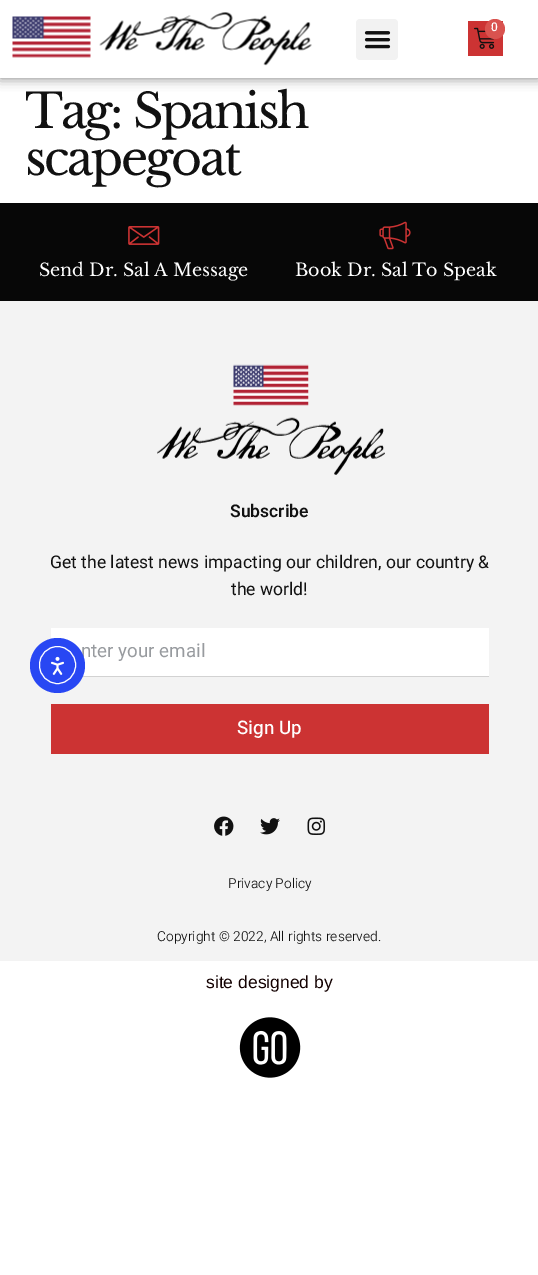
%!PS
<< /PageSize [538 1275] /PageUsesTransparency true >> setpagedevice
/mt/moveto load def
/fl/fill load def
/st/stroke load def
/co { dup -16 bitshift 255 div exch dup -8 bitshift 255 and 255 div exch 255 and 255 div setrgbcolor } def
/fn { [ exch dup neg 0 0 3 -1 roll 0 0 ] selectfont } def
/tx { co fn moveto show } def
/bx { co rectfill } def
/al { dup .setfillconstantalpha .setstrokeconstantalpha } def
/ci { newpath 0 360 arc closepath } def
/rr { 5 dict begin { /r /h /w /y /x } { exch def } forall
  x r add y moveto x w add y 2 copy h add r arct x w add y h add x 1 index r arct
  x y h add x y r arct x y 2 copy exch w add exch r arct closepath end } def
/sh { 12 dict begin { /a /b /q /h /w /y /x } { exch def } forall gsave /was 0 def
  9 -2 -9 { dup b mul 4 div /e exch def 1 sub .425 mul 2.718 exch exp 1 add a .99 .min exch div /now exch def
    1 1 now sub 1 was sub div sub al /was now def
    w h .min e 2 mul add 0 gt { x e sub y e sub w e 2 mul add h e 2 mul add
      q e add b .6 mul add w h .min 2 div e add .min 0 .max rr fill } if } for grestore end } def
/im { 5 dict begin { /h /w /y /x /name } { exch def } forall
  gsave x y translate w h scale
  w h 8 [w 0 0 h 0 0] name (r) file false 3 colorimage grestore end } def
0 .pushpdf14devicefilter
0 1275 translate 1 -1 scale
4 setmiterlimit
0 0 538 1275 16#FFFFFF bx
16#000000 co
0 0 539 78 0 6 .5 sh
0 0 538 78 16#FFFFFF bx
(media/1.raw) 12 12 300 54 im
16#F2F2F2 co
356 19 42 41 4 rr fl
(media/2.raw) 364 31 27 18 im
468 21 35 35 16#CC3333 bx
(media/3.raw) 474 27 21 22 im
16#D9534F co
495 29 10 ci fl
0 203 538 98 16#070707 bx
(media/4.raw) 128 226 32 19 im
(media/5.raw) 379 221 32 29 im
0 301 538 660 16#F3F3F3 bx
(media/6.raw) 157 364 228 111 im
51 628 438 48 16#FFFFFF bx
82 676 407 1 16#D2D2D2 bx
51 704 438 50 16#CC3333 bx
(media/7.raw) 214 816 20 20 im
(media/8.raw) 260 818 20 17 im
(media/9.raw) 307 817 19 18 im
(media/10.raw) 239 1017 62 61 im
(0) 491 31 /Heebo-Medium 12 16#FFFFFF tx
/LibreBaskerville-Regular 47.5 fn
16#111111 co
25 128 mt -2.5 0 (Tag: Spanish) ashow
25 175 mt -2.5 0 (scapegoat) ashow
(Send Dr. Sal A Message) 39 276 /LibreBaskerville-Regular 17.5 16#FFFFFF tx
(Book Dr. Sal To Speak) 295 276 /LibreBaskerville-Regular 17.5 16#FFFFFF tx
(Subscribe) 230 517 /Heebo-SemiBold 17.5 16#111111 tx
(Get the latest news impacting our children, our country &) 50 568 /Heebo-Regular 17.5 16#111111 tx
(the world!) 231 595 /Heebo-Regular 17.5 16#111111 tx
(nter your email) 81 657 /Heebo-Regular 18.75 16#989B9F tx
(Sign Up) 237 734 /Heebo-Medium 18.75 16#FFFFFF tx
(Privacy Policy) 228 888 /Heebo-Light 13.75 16#111111 tx
(Copyright © 2022, All rights reserved.) 157 941 /Heebo-Light 13.75 16#111111 tx
(site designed by) 206 988 /LiberationSans-Regular 17.5 16#130101 tx
16#2847F3 co
57.5 665.5 27.5 ci fl
16#FFFFFF co
39.5 646.5 36 37 18 rr st
(media/11.raw) 51 656 13 19 im
.poppdf14devicefilter showpage
